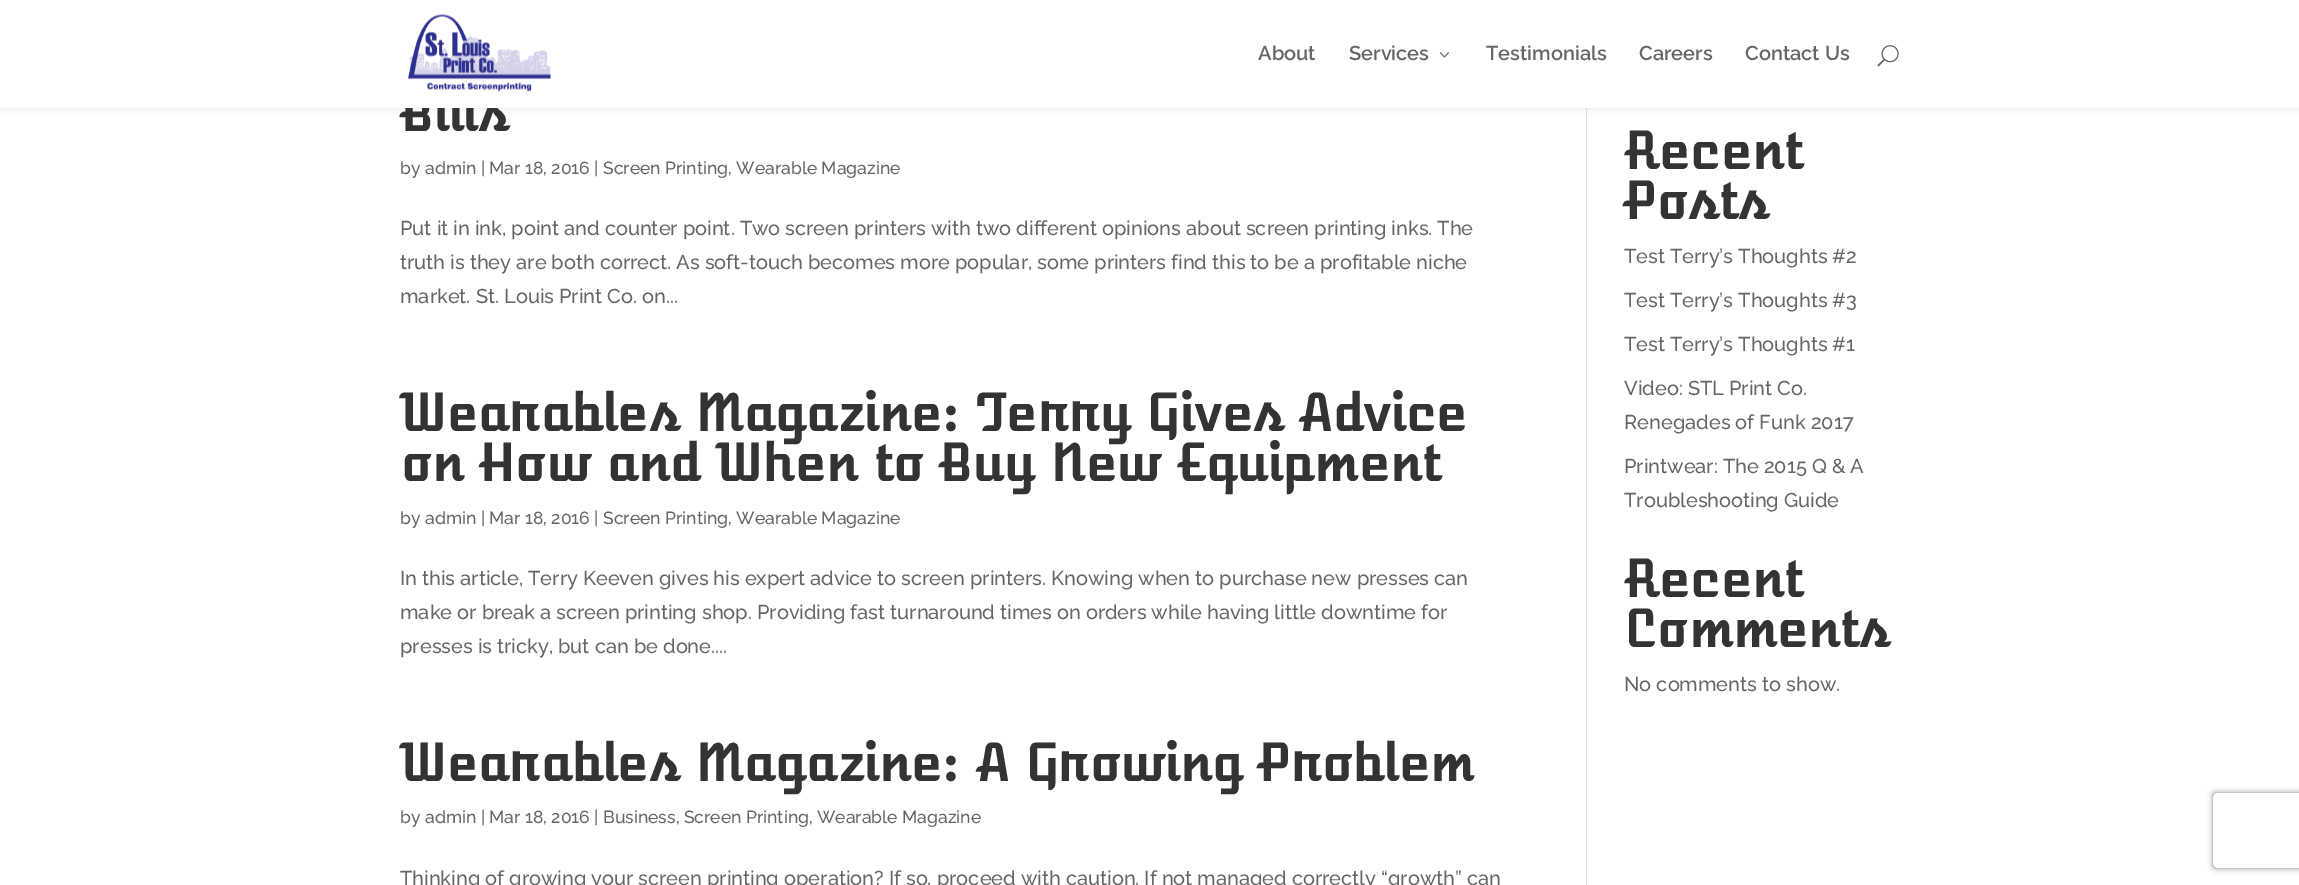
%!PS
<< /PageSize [2299 885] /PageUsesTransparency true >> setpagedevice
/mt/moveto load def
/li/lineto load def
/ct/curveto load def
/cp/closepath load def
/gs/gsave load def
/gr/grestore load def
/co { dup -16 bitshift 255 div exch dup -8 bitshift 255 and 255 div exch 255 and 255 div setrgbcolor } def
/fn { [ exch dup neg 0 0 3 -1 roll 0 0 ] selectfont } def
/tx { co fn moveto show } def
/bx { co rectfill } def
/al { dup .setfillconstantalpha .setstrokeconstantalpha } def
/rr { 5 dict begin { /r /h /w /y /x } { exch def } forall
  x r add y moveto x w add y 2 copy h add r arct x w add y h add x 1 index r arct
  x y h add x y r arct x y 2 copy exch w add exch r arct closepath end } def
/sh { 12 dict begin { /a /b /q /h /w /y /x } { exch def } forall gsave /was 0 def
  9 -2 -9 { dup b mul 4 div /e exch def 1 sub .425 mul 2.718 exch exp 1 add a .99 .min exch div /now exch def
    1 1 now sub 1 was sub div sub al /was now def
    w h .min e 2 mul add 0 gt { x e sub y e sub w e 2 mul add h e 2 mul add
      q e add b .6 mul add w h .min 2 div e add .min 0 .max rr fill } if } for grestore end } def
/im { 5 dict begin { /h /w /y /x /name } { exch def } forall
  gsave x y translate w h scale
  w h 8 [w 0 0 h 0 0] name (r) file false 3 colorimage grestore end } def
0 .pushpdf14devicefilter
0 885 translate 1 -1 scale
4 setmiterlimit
0 0 2299 885 16#FFFFFF bx
1586 108 1 777 16#E2E2E2 bx
16#000000 co
0 0 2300 108 0 4.5 .1 sh
gs
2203 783 mt 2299 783 li 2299 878 li 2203 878 li cp 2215.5 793 mt 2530.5 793 li 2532 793 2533 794 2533 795.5 ct 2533 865.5 li 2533 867 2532 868 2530.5 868 ct 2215.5 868 li 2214 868 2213 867 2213 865.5 ct 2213 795.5 li 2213 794 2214 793 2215.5 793 ct cp eoclip newpath
16#808080 co
2213 793 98 75 2.5 3 1 sh
gr
(Bills) 400 131 /AtomicAge-Bold 50 16#333333 tx
0 0 2299 108 16#FFFFFF bx
(media/3.raw) 1877 45 22 22 im
(Contact Us) 1745 60 /Raleway-SemiBold 20 16#666666 tx
(Careers) 1639 60 /Raleway-SemiBold 20 16#666666 tx
(Testimonials) 1486 60 /Raleway-SemiBold 20 16#666666 tx
(media/2.raw) 1439 52 10 6 im
(Services) 1349 60 /Raleway-SemiBold 20 16#666666 tx
(About) 1258 60 /Raleway-SemiBold 20 16#666666 tx
(media/1.raw) 407 14 144 78 im
(by admin | Mar 18, 2016 | Screen Printing, Wearable Magazine) 400 174 /Raleway-Medium 17.5 16#666666 tx
(Put it in ink, point and counter point. Two screen printers with two different opinions about screen printing inks. The) 400 235 /Raleway-Medium 20 16#666666 tx
(truth is they are both correct. As soft-touch becomes more popular, some printers find this to be a profitable niche) 400 269 /Raleway-Medium 20 16#666666 tx
(market. St. Louis Print Co. on...) 400 303 /Raleway-Medium 20 16#666666 tx
(Wearables Magazine: Terry Gives Advice) 400 431 /AtomicAge-Bold 50 16#333333 tx
(on How and When to Buy New Equipment) 400 481 /AtomicAge-Bold 50 16#333333 tx
(by admin | Mar 18, 2016 | Screen Printing, Wearable Magazine) 400 524 /Raleway-Medium 17.5 16#666666 tx
(In this article, Terry Keeven gives his expert advice to screen printers. Knowing when to purchase new presses can) 400 585 /Raleway-Medium 20 16#666666 tx
(make or break a screen printing shop. Providing fast turnaround times on orders while having little downtime for) 400 619 /Raleway-Medium 20 16#666666 tx
(presses is tricky, but can be done....) 400 653 /Raleway-Medium 20 16#666666 tx
(Wearables Magazine: A Growing Problem) 400 781 /AtomicAge-Bold 50 16#333333 tx
(by admin | Mar 18, 2016 | Business, Screen Printing, Wearable Magazine) 400 823 /Raleway-Medium 17.5 16#666666 tx
(Thinking of growing your screen printing operation? If so, proceed with caution. If not managed correctly “growth” can) 400 885 /Raleway-Medium 20 16#666666 tx
(Recent) 1624 169 /AtomicAge-Bold 50 16#333333 tx
(Posts) 1624 219 /AtomicAge-Bold 50 16#333333 tx
(Test Terry’s Thoughts #2) 1624 263 /Raleway-Medium 20 16#666666 tx
(Test Terry’s Thoughts #3) 1624 307 /Raleway-Medium 20 16#666666 tx
(Test Terry’s Thoughts #1) 1624 351 /Raleway-Medium 20 16#666666 tx
(Video: STL Print Co.) 1624 395 /Raleway-Medium 20 16#666666 tx
(Renegades of Funk 2017) 1624 429 /Raleway-Medium 20 16#666666 tx
(Printwear: The 2015 Q & A) 1624 473 /Raleway-Medium 20 16#666666 tx
(Troubleshooting Guide) 1624 507 /Raleway-Medium 20 16#666666 tx
(Recent) 1624 597 /AtomicAge-Bold 50 16#333333 tx
(Comments) 1624 647 /AtomicAge-Bold 50 16#333333 tx
(No comments to show.) 1624 691 /Raleway-Medium 20 16#666666 tx
.poppdf14devicefilter showpage
